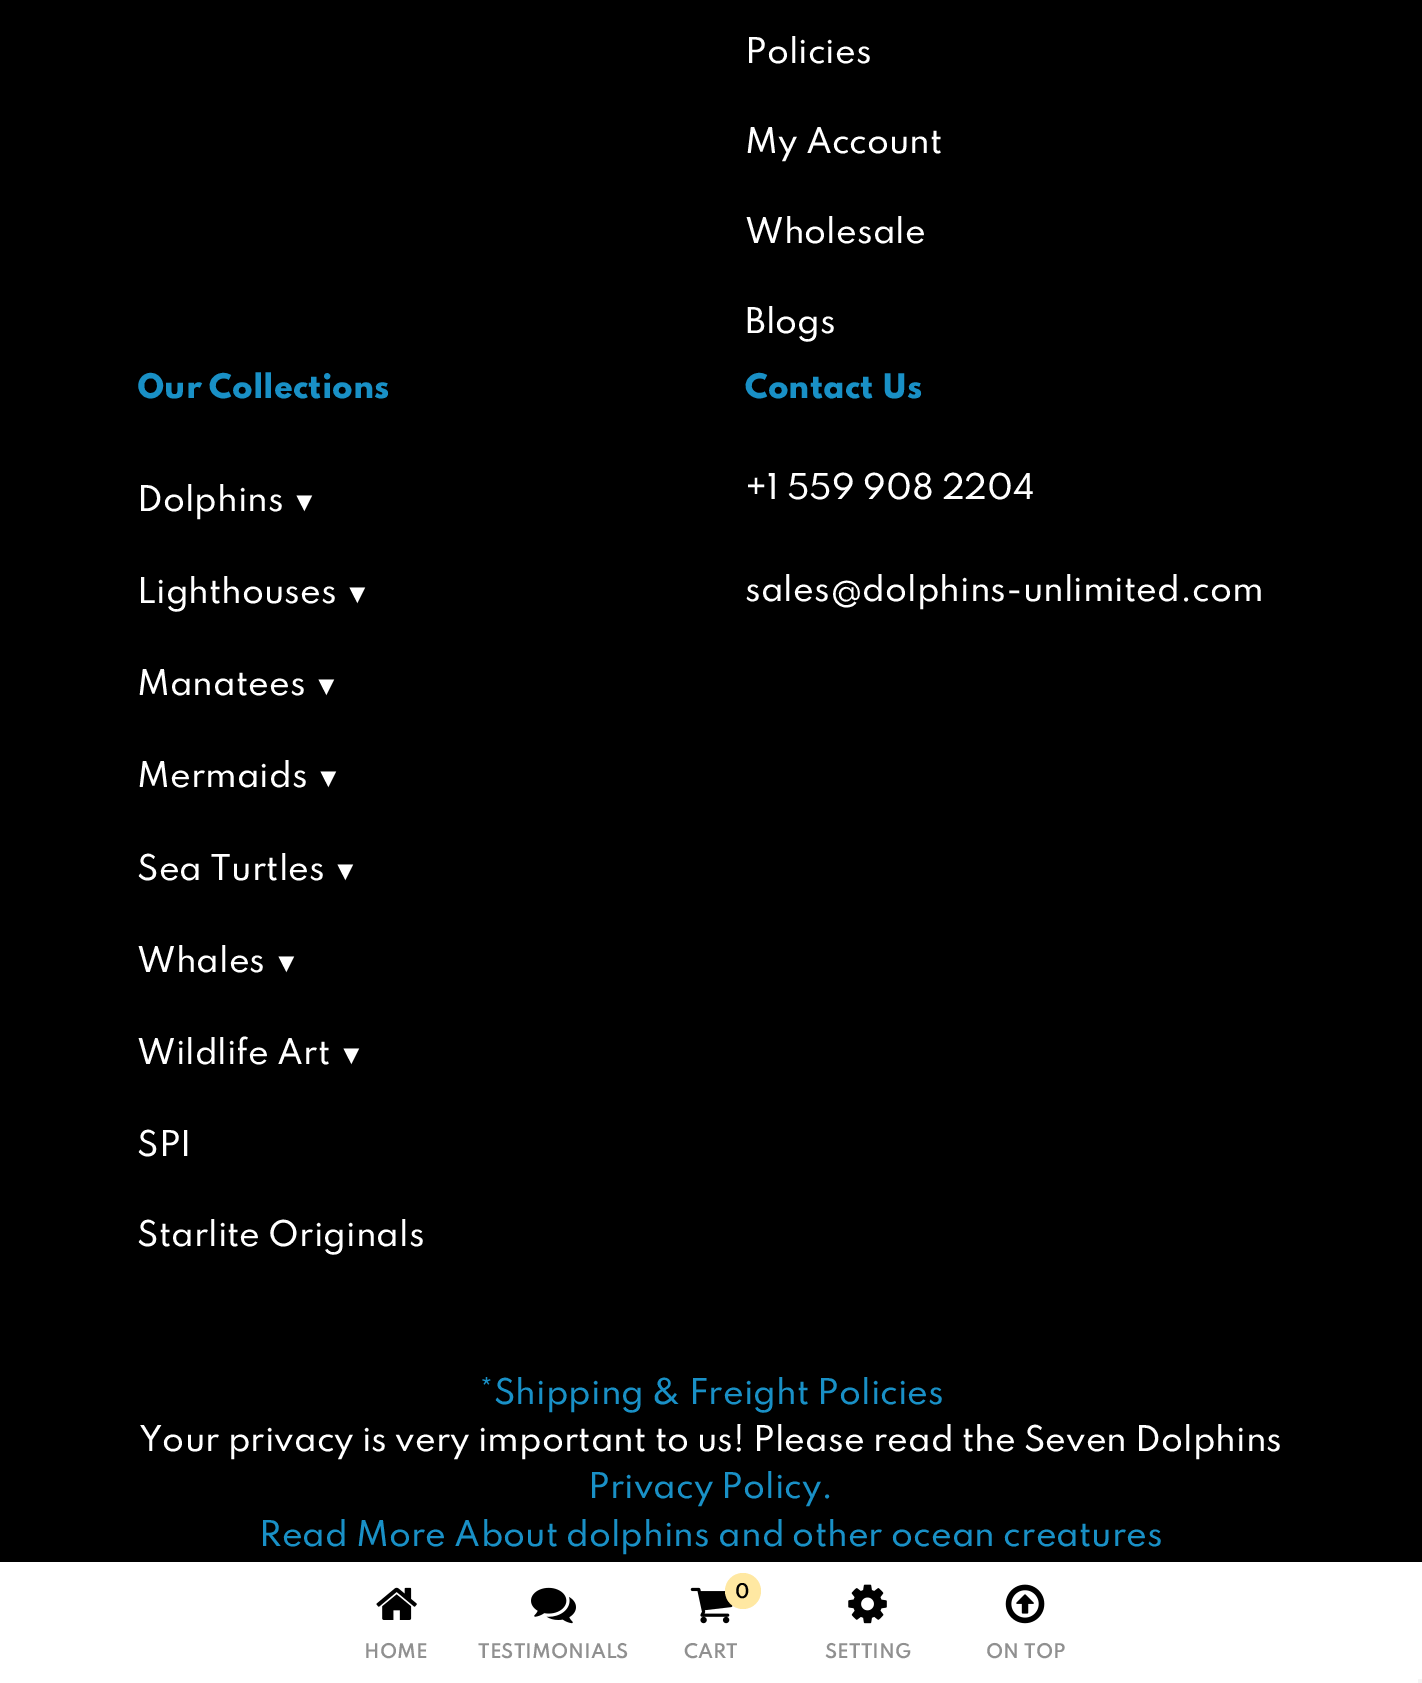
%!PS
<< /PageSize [1422 1683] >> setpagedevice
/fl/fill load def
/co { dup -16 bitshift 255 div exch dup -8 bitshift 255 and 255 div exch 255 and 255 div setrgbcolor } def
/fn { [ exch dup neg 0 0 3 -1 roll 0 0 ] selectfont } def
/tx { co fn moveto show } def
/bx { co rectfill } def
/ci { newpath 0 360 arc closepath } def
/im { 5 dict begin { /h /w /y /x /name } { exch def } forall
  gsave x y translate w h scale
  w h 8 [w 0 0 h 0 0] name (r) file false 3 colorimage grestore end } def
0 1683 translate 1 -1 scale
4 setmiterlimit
0 0 1422 1683 16#000000 bx
0 1562 1422 121 16#FFFFFF bx
(media/1.raw) 376 1587 41 33 im
(media/2.raw) 531 1587 45 37 im
(media/3.raw) 690 1587 43 37 im
16#FFE8A2 co
743 1591 18 ci fl
(media/4.raw) 848 1584 39 40 im
(media/5.raw) 1005 1584 40 40 im
1418 1679 4 4 16#F5F5F5 bx
(Policies) 745 63 /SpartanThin-Medium 31.5 16#FFFFFF tx
(My Account) 745 153 /SpartanThin-Medium 31.5 16#FFFFFF tx
(Wholesale) 745 243 /SpartanThin-Medium 31.5 16#FFFFFF tx
(Blogs) 745 333 /SpartanThin-Medium 31.5 16#FFFFFF tx
(Our Collections) 137 398 /SpartanThin-ExtraBold 30 16#1990C6 tx
(Dolphins) 137 511 /SpartanThin-Medium 31.5 16#FFFFFF tx
(▼) 291 511 /LiberationSans-Regular 27 16#FFFFFF tx
(Lighthouses) 137 603 /SpartanThin-Medium 31.5 16#FFFFFF tx
(▼) 344 603 /LiberationSans-Regular 27 16#FFFFFF tx
(Manatees) 137 695 /SpartanThin-Medium 31.5 16#FFFFFF tx
(▼) 313 695 /LiberationSans-Regular 27 16#FFFFFF tx
(Mermaids) 137 787 /SpartanThin-Medium 31.5 16#FFFFFF tx
(▼) 315 787 /LiberationSans-Regular 27 16#FFFFFF tx
(Sea Turtles) 137 880 /SpartanThin-Medium 31.5 16#FFFFFF tx
(▼) 332 880 /LiberationSans-Regular 27 16#FFFFFF tx
(Whales) 137 972 /SpartanThin-Medium 31.5 16#FFFFFF tx
(▼) 273 972 /LiberationSans-Regular 27 16#FFFFFF tx
(Wildlife Art) 137 1064 /SpartanThin-Medium 31.5 16#FFFFFF tx
(▼) 338 1064 /LiberationSans-Regular 27 16#FFFFFF tx
(SPI) 137 1156 /SpartanThin-Medium 31.5 16#FFFFFF tx
(Starlite Originals) 137 1246 /SpartanThin-Medium 31.5 16#FFFFFF tx
(Contact Us) 745 398 /SpartanThin-ExtraBold 30 16#1990C6 tx
(+1 559 908 2204) 745 499 /SpartanThin-Medium 31.5 16#FFFFFF tx
(sales@dolphins-unlimited.com) 745 601 /SpartanThin-Medium 31.5 16#FFFFFF tx
(*Shipping & Freight Policies) 479 1404 /SpartanThin-Medium 31.5 16#1990C6 tx
(Your privacy is very important to us! Please read the Seven Dolphins) 139 1451 /SpartanThin-Medium 31.5 16#FFFFFF tx
(Privacy Policy.) 588 1498 /SpartanThin-Medium 31.5 16#1990C6 tx
(Read More About dolphins and other ocean creatures) 259 1546 /SpartanThin-Medium 31.5 16#1990C6 tx
(HOME) 364 1658 /SpartanThin-SemiBold 18 16#909090 tx
(TESTIMONIALS) 478 1658 /SpartanThin-SemiBold 18 16#909090 tx
(0) 735 1598 /SpartanThin-SemiBold 18 16#000000 tx
(CART) 684 1658 /SpartanThin-SemiBold 18 16#909090 tx
(SETTING) 825 1658 /SpartanThin-SemiBold 18 16#909090 tx
(ON TOP) 986 1658 /SpartanThin-SemiBold 18 16#909090 tx
showpage
